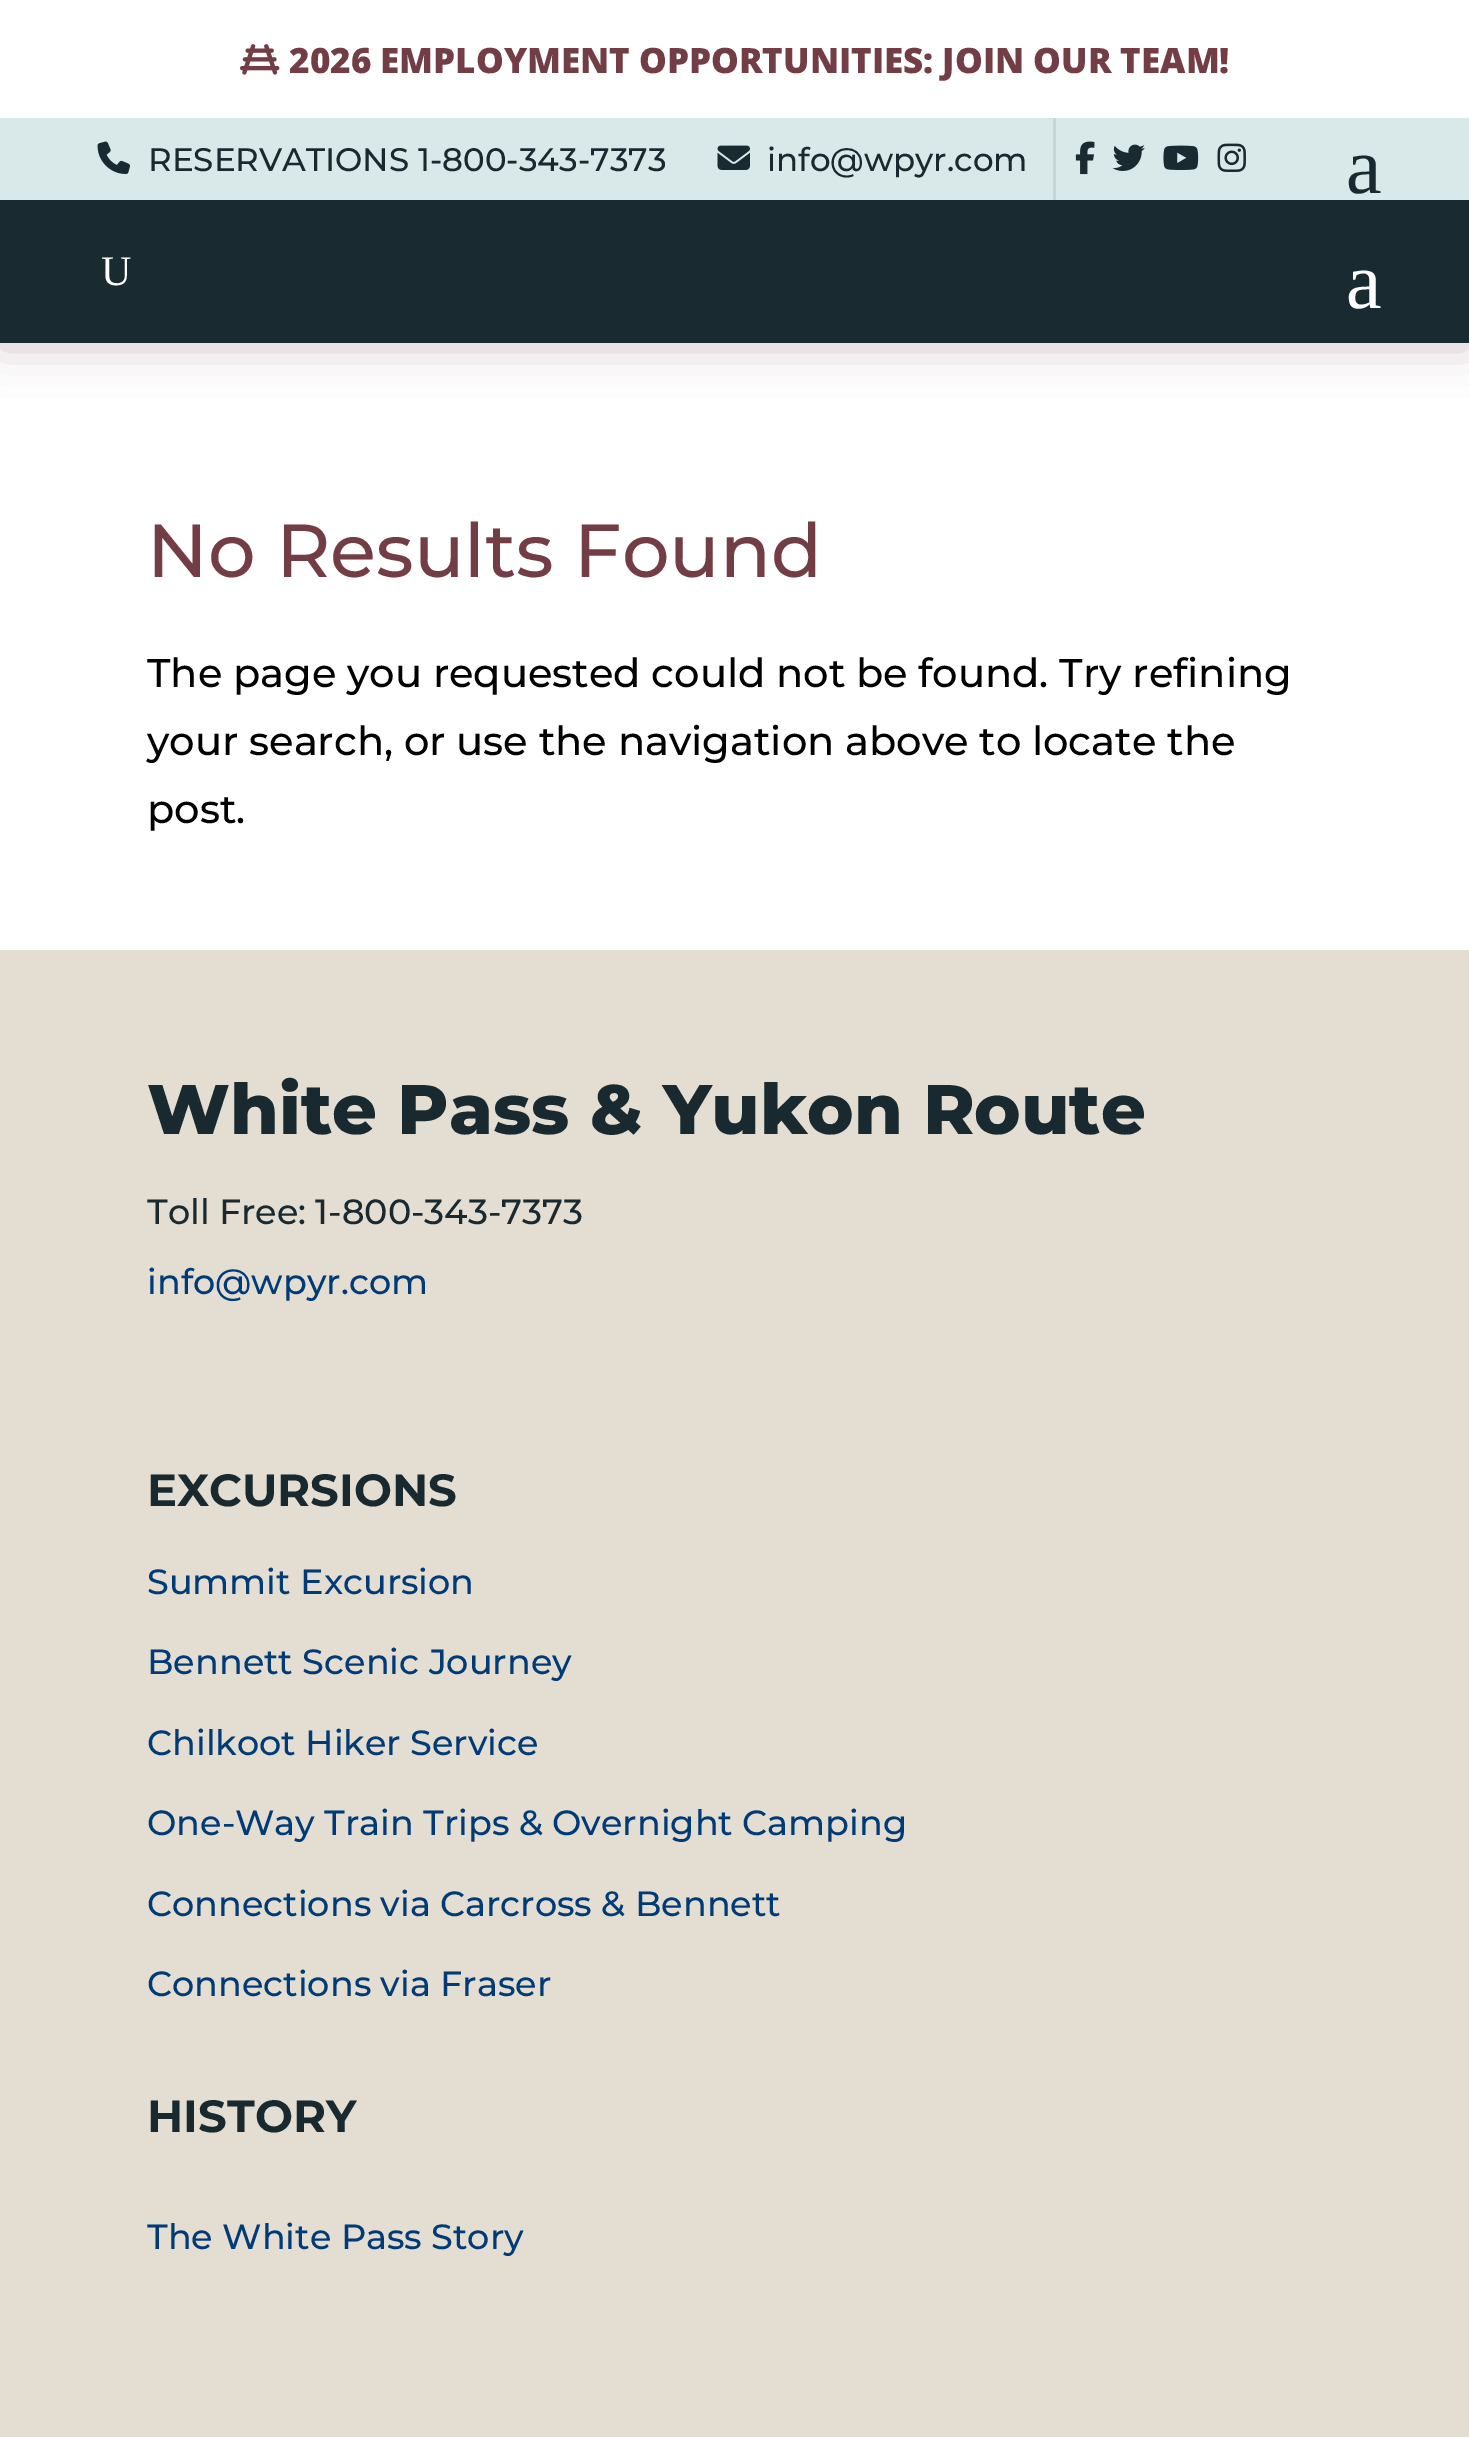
%!PS
<< /PageSize [1469 2437] /PageUsesTransparency true >> setpagedevice
/co { dup -16 bitshift 255 div exch dup -8 bitshift 255 and 255 div exch 255 and 255 div setrgbcolor } def
/fn { [ exch dup neg 0 0 3 -1 roll 0 0 ] selectfont } def
/tx { co fn moveto show } def
/bx { co rectfill } def
/al { dup .setfillconstantalpha .setstrokeconstantalpha } def
/rr { 5 dict begin { /r /h /w /y /x } { exch def } forall
  x r add y moveto x w add y 2 copy h add r arct x w add y h add x 1 index r arct
  x y h add x y r arct x y 2 copy exch w add exch r arct closepath end } def
/sh { 12 dict begin { /a /b /q /h /w /y /x } { exch def } forall gsave /was 0 def
  9 -2 -9 { dup b mul 4 div /e exch def 1 sub .425 mul 2.718 exch exp 1 add a .99 .min exch div /now exch def
    1 1 now sub 1 was sub div sub al /was now def
    w h .min e 2 mul add 0 gt { x e sub y e sub w e 2 mul add h e 2 mul add
      q e add b .6 mul add w h .min 2 div e add .min 0 .max rr fill } if } for grestore end } def
/im { 5 dict begin { /h /w /y /x /name } { exch def } forall
  gsave x y translate w h scale
  w h 8 [w 0 0 h 0 0] name (r) file false 3 colorimage grestore end } def
0 .pushpdf14devicefilter
0 2437 translate 1 -1 scale
4 setmiterlimit
0 0 1469 2437 16#FFFFFF bx
(media/1.raw) 240 44 40 31 im
16#723D44 co
0 205 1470 143 0 22.5 .3 sh
0 118 1469 82 16#D9E8E9 bx
(media/2.raw) 97 141 33 34 im
1053 118 3 82 16#C6D5D7 bx
(media/3.raw) 717 145 33 25 im
(media/4.raw) 1075 141 20 34 im
(media/5.raw) 1112 144 33 27 im
(media/6.raw) 1163 145 36 25 im
(media/7.raw) 1217 143 29 29 im
0 200 1469 143 16#192A31 bx
0 950 1469 1487 16#E4DDD1 bx
(2026 EMPLOYMENT OPPORTUNITIES: JOIN OUR TEAM!) 289 73 /OpenSans-ExtraBold 35 16#723D44 tx
(RESERVATIONS 1-800-343-7373) 148 171 /Montserrat-Medium 32.5 16#182A30 tx
(info@wpyr.com) 767 171 /Montserrat-Medium 32.5 16#182A30 tx
(a) 1346 193 /LiberationSerif-Regular 80 16#182A30 tx
(U) 101 285 /LiberationSerif-Regular 42 16#FFFFFF tx
(a) 1346 308 /LiberationSerif-Regular 80 16#FFFFFF tx
(No Results Found) 147 577 /Montserrat-Medium 75 16#723D44 tx
(The page you requested could not be found. Try refining) 147 687 /Montserrat-Medium 40 16#000000 tx
(your search, or use the navigation above to locate the) 147 755 /Montserrat-Medium 40 16#000000 tx
(post.) 147 823 /Montserrat-Medium 40 16#000000 tx
(White Pass & Yukon Route) 147 1134 /Montserrat-ExtraBold 70 16#182A30 tx
(Toll Free: 1-800-343-7373) 147 1224 /Montserrat-Medium 35 16#182A30 tx
(info@wpyr.com) 147 1294 /Montserrat-Medium 35 16#003B78 tx
(EXCURSIONS) 147 1506 /Montserrat-Bold 45 16#182A30 tx
(Summit Excursion) 147 1594 /Montserrat-Medium 35 16#003B78 tx
(Bennett Scenic Journey) 147 1674 /Montserrat-Medium 35 16#003B78 tx
(Chilkoot Hiker Service) 147 1755 /Montserrat-Medium 35 16#003B78 tx
(One-Way Train Trips & Overnight Camping) 147 1835 /Montserrat-Medium 35 16#003B78 tx
(Connections via Carcross & Bennett) 147 1916 /Montserrat-Medium 35 16#003B78 tx
(Connections via Fraser) 147 1996 /Montserrat-Medium 35 16#003B78 tx
(HISTORY) 147 2132 /Montserrat-Bold 45 16#182A30 tx
(The White Pass Story) 147 2249 /Montserrat-Medium 35 16#003B78 tx
.poppdf14devicefilter showpage
